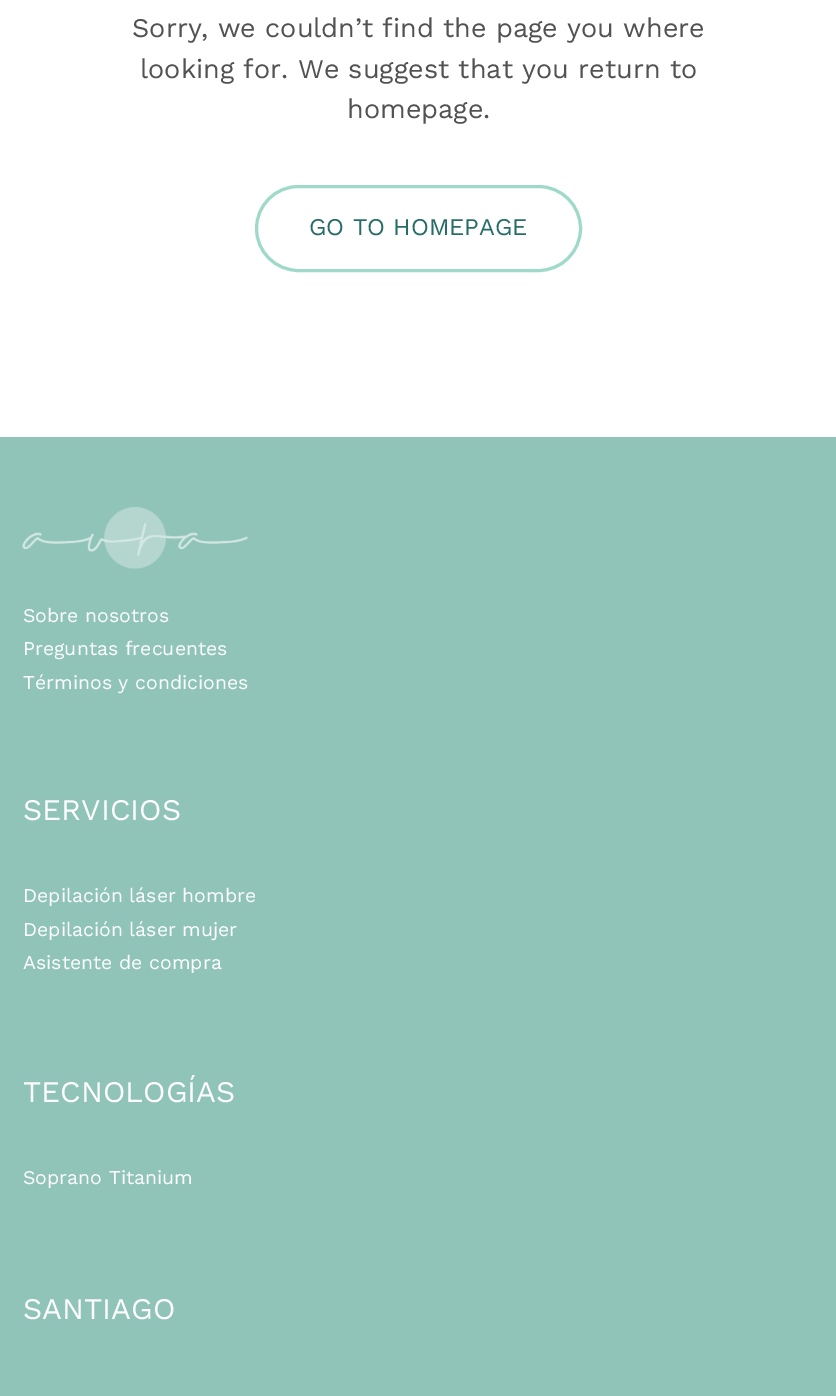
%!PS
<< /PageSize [836 1396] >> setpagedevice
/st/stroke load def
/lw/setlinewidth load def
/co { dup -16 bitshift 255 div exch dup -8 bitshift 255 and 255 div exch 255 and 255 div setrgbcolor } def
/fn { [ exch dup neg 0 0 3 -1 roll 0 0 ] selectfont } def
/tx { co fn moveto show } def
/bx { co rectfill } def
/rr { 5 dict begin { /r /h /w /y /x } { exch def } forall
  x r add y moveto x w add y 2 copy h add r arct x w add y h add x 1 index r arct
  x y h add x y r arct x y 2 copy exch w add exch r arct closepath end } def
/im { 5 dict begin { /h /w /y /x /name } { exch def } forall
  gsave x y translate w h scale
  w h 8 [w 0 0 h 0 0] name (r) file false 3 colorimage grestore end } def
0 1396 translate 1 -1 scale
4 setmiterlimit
0 0 836 1396 16#FFFFFF bx
16#9ED9C9 co
3 lw
256.5 186.5 324 84 42 rr st
0 437 836 959 16#91C4B8 bx
(media/1.raw) 22 507 226 62 im
(Sorry, we couldn’t find the page you where) 132 37 /WorkSans-Regular 27 16#525252 tx
(looking for. We suggest that you return to) 140 78 /WorkSans-Regular 27 16#525252 tx
(homepage.) 347 118 /WorkSans-Regular 27 16#525252 tx
(GO TO HOMEPAGE) 309 235 /WorkSans-Regular 24 16#266D68 tx
(Sobre nosotros) 23 622 /WorkSans-Regular 19.5 16#FFFFFF tx
(Preguntas frecuentes) 23 655 /WorkSans-Regular 19.5 16#FFFFFF tx
(Términos y condiciones) 23 689 /WorkSans-Regular 19.5 16#FFFFFF tx
(SERVICIOS) 23 820 /WorkSans-Regular 30 16#FFFFFF tx
(Depilación láser hombre) 23 902 /WorkSans-Regular 19.5 16#FFFFFF tx
(Depilación láser mujer) 23 936 /WorkSans-Regular 19.5 16#FFFFFF tx
(Asistente de compra) 23 969 /WorkSans-Regular 19.5 16#FFFFFF tx
(TECNOLOGÍAS) 23 1102 /WorkSans-Regular 30 16#FFFFFF tx
(Soprano Titanium) 23 1184 /WorkSans-Regular 19.5 16#FFFFFF tx
(SANTIAGO) 23 1319 /WorkSans-Regular 30 16#FFFFFF tx
showpage
